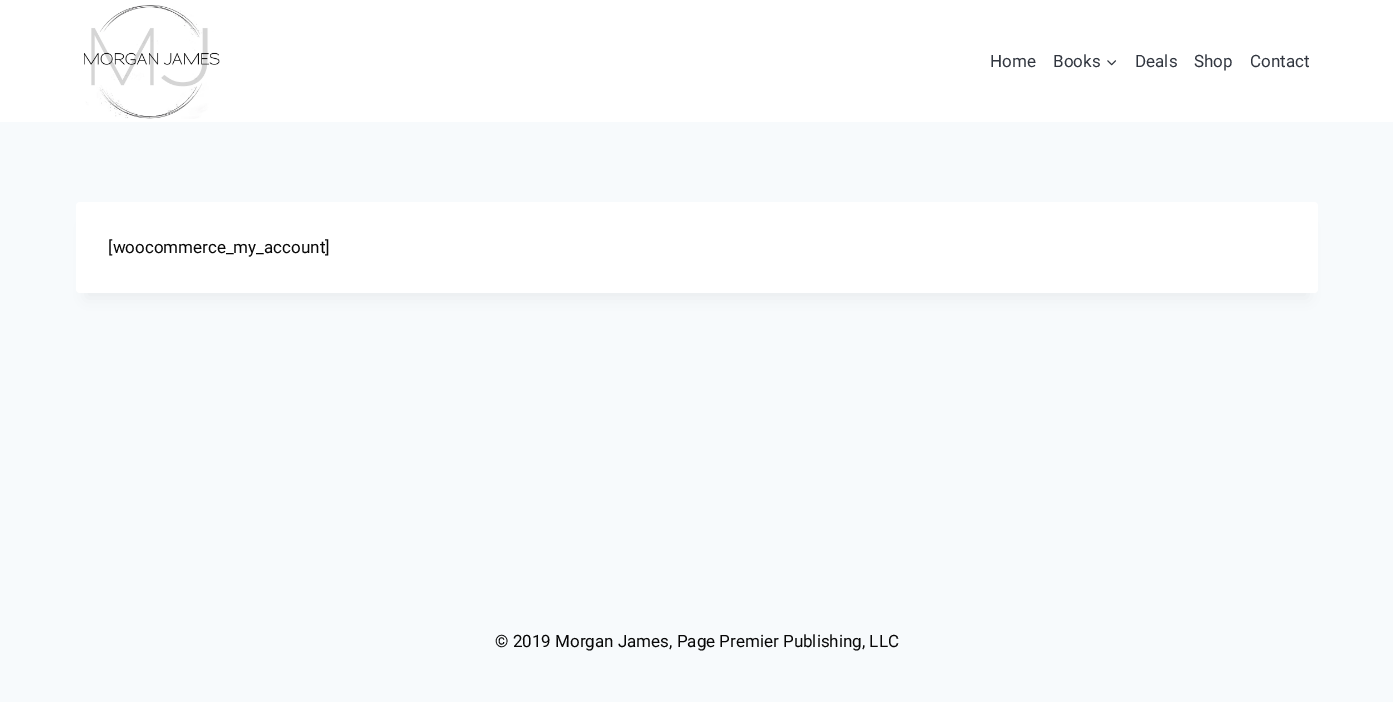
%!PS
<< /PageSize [1393 702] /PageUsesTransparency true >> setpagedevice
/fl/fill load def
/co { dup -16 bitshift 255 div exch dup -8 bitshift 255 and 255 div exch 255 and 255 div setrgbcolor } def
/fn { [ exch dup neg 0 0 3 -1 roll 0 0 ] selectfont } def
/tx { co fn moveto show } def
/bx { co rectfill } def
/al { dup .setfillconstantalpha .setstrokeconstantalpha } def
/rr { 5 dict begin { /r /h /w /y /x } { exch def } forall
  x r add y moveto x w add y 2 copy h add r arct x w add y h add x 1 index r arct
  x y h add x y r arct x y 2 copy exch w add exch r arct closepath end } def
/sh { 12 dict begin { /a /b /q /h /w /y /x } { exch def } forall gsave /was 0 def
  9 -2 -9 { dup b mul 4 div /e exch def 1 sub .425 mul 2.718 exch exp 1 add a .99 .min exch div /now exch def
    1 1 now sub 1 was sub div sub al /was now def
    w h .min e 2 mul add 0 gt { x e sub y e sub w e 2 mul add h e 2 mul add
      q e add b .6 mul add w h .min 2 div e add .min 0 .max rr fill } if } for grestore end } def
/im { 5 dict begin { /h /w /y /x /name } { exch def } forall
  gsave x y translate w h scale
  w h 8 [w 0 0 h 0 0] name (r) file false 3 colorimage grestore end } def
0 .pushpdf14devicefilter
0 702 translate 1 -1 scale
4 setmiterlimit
0 0 1393 702 16#F7FAFC bx
0 0 1393 122 16#FFFFFF bx
(media/1.raw) 84 5 136 114 im
(media/2.raw) 1107 60 10 6 im
16#000000 co
86 227 1222 71 0 7.5 .05 sh
16#FFFFFF co
76 202 1242 91 4 rr fl
(Home) 990 67 /Roboto-Regular 17 16#31363F tx
(Books) 1053 67 /Roboto-Regular 17 16#31363F tx
(Deals) 1135 67 /Roboto-Regular 17 16#31363F tx
(Shop) 1194 67 /Roboto-Regular 17 16#31363F tx
(Contact) 1250 67 /Roboto-Regular 17 16#31363F tx
([woocommerce_my_account]) 108 253 /Roboto-Regular 17 16#070707 tx
(© 2019 Morgan James, Page Premier Publishing, LLC) 495 647 /Roboto-Regular 17 16#070707 tx
.poppdf14devicefilter showpage
